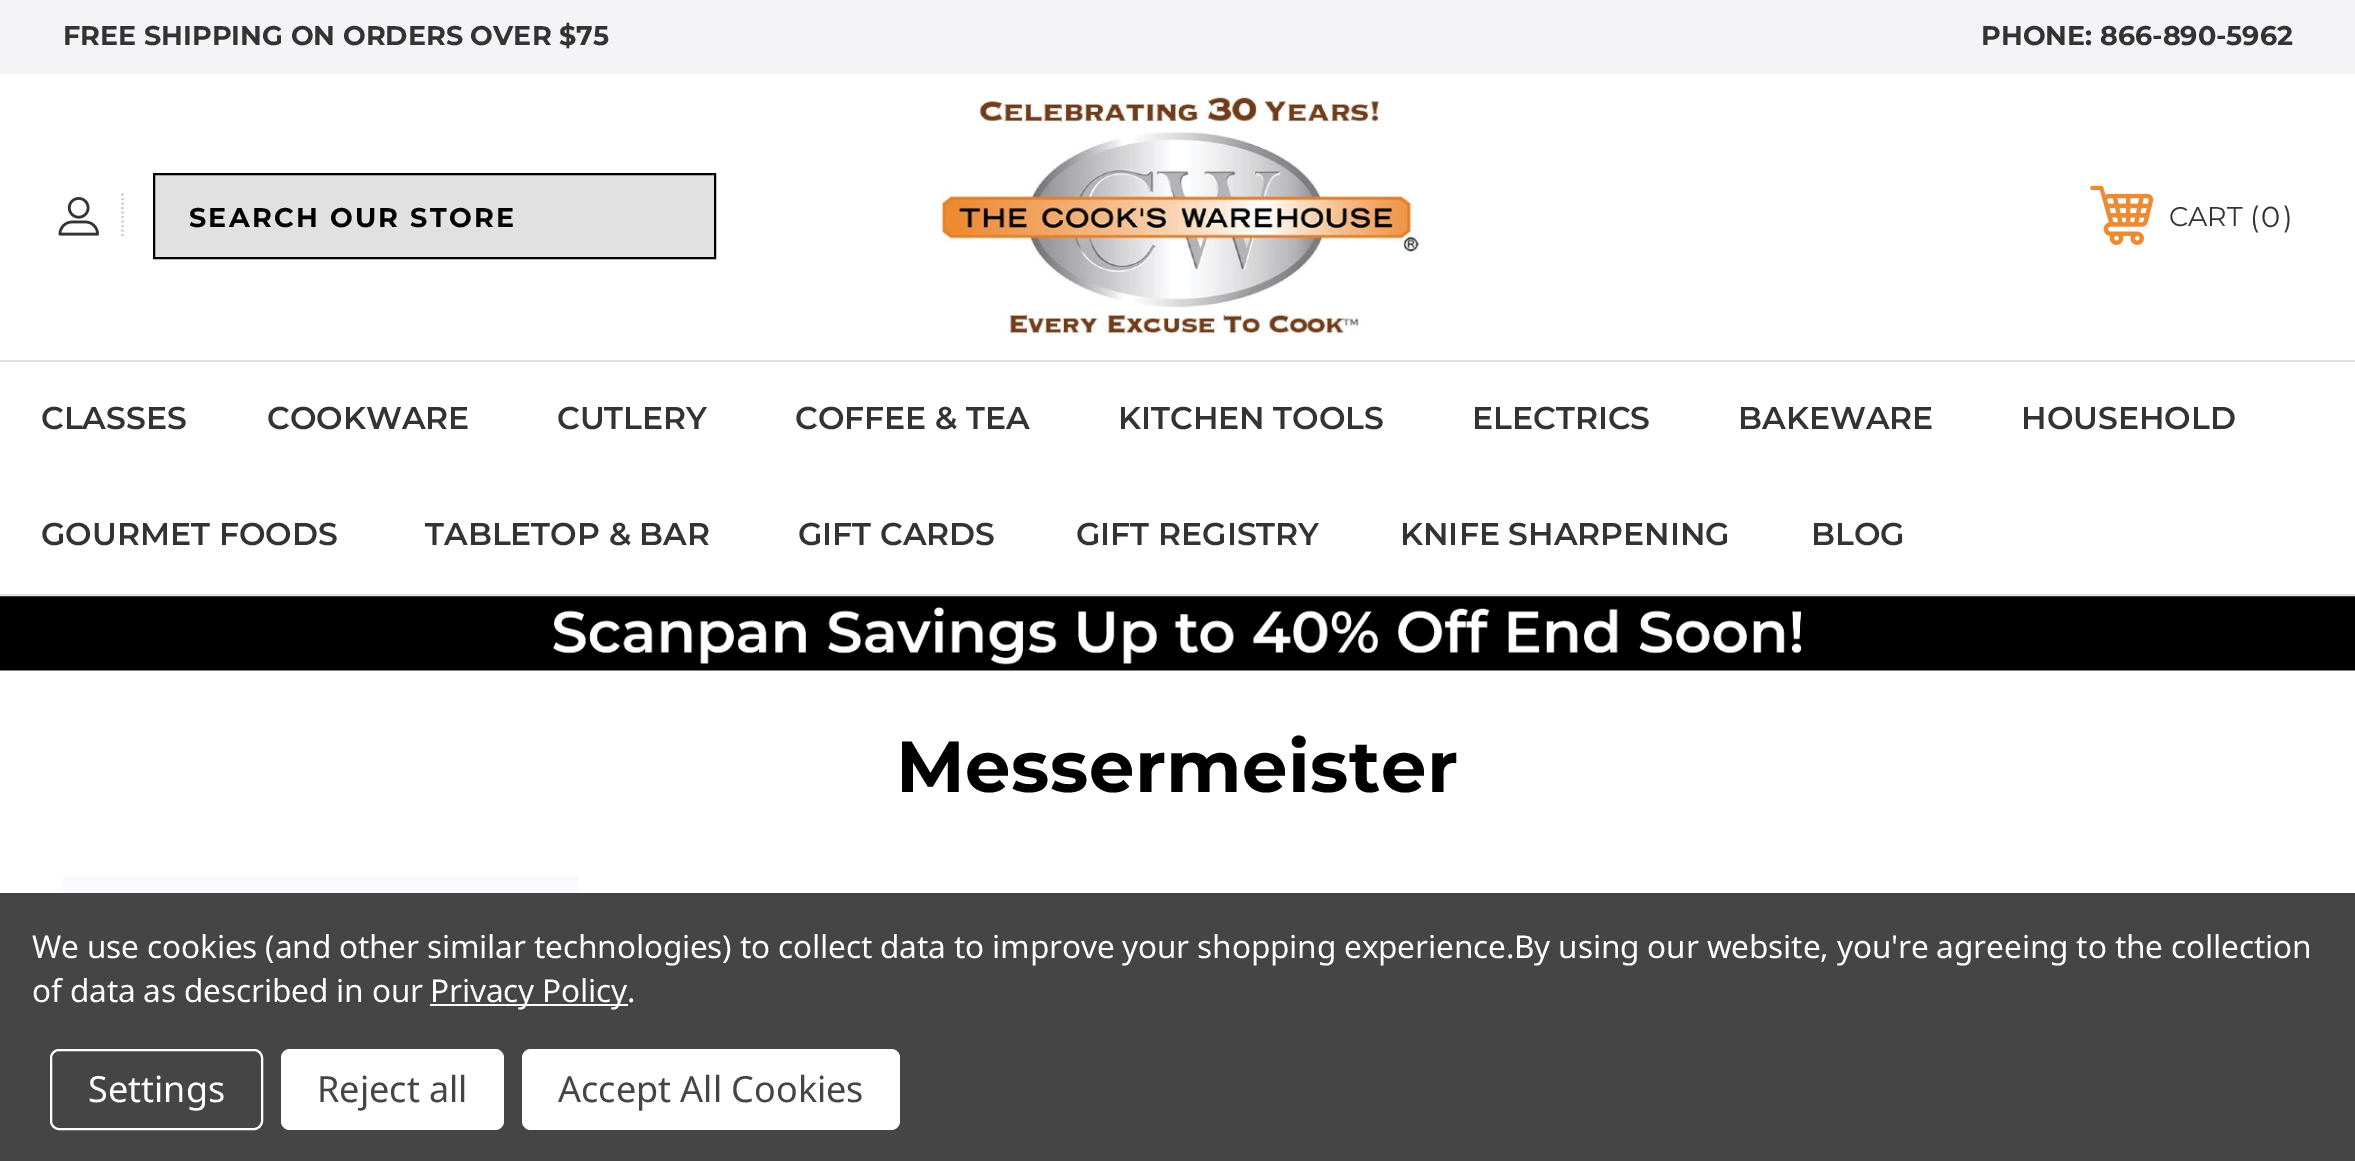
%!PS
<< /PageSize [2355 1161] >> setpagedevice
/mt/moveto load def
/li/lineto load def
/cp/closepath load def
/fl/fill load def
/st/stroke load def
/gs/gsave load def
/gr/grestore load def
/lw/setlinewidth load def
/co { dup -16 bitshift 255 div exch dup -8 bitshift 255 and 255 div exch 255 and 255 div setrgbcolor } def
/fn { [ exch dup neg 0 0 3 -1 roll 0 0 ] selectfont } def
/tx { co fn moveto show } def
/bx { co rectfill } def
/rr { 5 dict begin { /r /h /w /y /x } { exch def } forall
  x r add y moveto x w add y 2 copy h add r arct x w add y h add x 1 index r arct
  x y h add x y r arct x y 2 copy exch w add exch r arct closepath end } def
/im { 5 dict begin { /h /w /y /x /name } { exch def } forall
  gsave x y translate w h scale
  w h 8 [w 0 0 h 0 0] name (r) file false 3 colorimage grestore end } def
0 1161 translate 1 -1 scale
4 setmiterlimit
0 0 2355 1161 16#FFFFFF bx
0 0 2355 74 16#F4F4F7 bx
0 594 2355 2 16#E1E1E1 bx
(media/1.raw) 58 197 41 39 im
16#CCCCCC co
2.2 lw
[2.25 2.25] 0 setdash
122.5 193.5 mt 122.5 238.5 li st
16#E1E1E1 co
154 174 mt 715 174 li 715 258 li 154 258 li cp gs fl gr
16#000000 co
2 lw
[] 0 setdash
st
(media/2.raw) 939 95 480 241 im
(media/3.raw) 2090 185 64 60 im
0 360 2355 2 16#E1E1E1 bx
(media/4.raw) 0 596 2355 75 im
63 875 515 18 16#FAFAFD bx
0 893 2355 268 16#454545 bx
430 1004 198 2 16#FFFFFF bx
51 1050 211 79 8 rr st
281 1049 223 81 9 rr fl
522 1049 378 81 9 rr fl
(FREE SHIPPING ON ORDERS OVER $75) 63 45 /Montserrat-Bold 27 16#333333 tx
(PHONE: 866-890-5962) 1981 45 /Montserrat-Bold 27 16#333333 tx
16#010101 co
189 227 mt 2.25 0 (SEARCH OUR STORE) ashow
(CART) 2169 226 /Montserrat-Thin 27 16#333333 tx
(\() 2250 227 /Montserrat-Thin 29 16#333333 tx
(0) 2261 227 /Montserrat-Thin 29 16#333333 tx
(\)) 2283 227 /Montserrat-Thin 29 16#333333 tx
(CLASSES) 41 429 /Montserrat-SemiBold 31.5 16#333333 tx
(COOKWARE) 267 429 /Montserrat-SemiBold 31.5 16#333333 tx
(CUTLERY) 557 429 /Montserrat-SemiBold 31.5 16#333333 tx
(COFFEE & TEA) 795 429 /Montserrat-SemiBold 31.5 16#333333 tx
(KITCHEN TOOLS) 1118 429 /Montserrat-SemiBold 31.5 16#333333 tx
(ELECTRICS) 1472 429 /Montserrat-SemiBold 31.5 16#333333 tx
(BAKEWARE) 1738 429 /Montserrat-SemiBold 31.5 16#333333 tx
(HOUSEHOLD) 2021 429 /Montserrat-SemiBold 31.5 16#333333 tx
(GOURMET FOODS) 41 545 /Montserrat-SemiBold 31.5 16#333333 tx
(TABLETOP & BAR) 425 545 /Montserrat-SemiBold 31.5 16#333333 tx
(GIFT CARDS) 798 545 /Montserrat-SemiBold 31.5 16#333333 tx
(GIFT REGISTRY) 1076 545 /Montserrat-SemiBold 31.5 16#333333 tx
(KNIFE SHARPENING) 1400 545 /Montserrat-SemiBold 31.5 16#333333 tx
(BLOG) 1811 545 /Montserrat-SemiBold 31.5 16#333333 tx
/Montserrat-Bold 72 fn
16#010101 co
896 792 mt .5 0 (Messermeister) ashow
/NotoSans-Regular 31.5 fn
16#FFFFFF co
32 958 mt -.11 0 (We use cookies \(and other similar technologies\) to collect data to improve your shopping experience.By using our website, you're agreeing to the collection) ashow
32 1002 mt -.11 0 (of data as described in our) ashow
430 1002 mt -.11 0 (Privacy Policy.) ashow
(Settings) 88 1102 /NotoSans-Regular 36 16#FFFFFF tx
(Reject all) 317 1102 /NotoSans-Regular 36 16#454545 tx
(Accept All Cookies) 558 1102 /NotoSans-Regular 36 16#454545 tx
showpage
